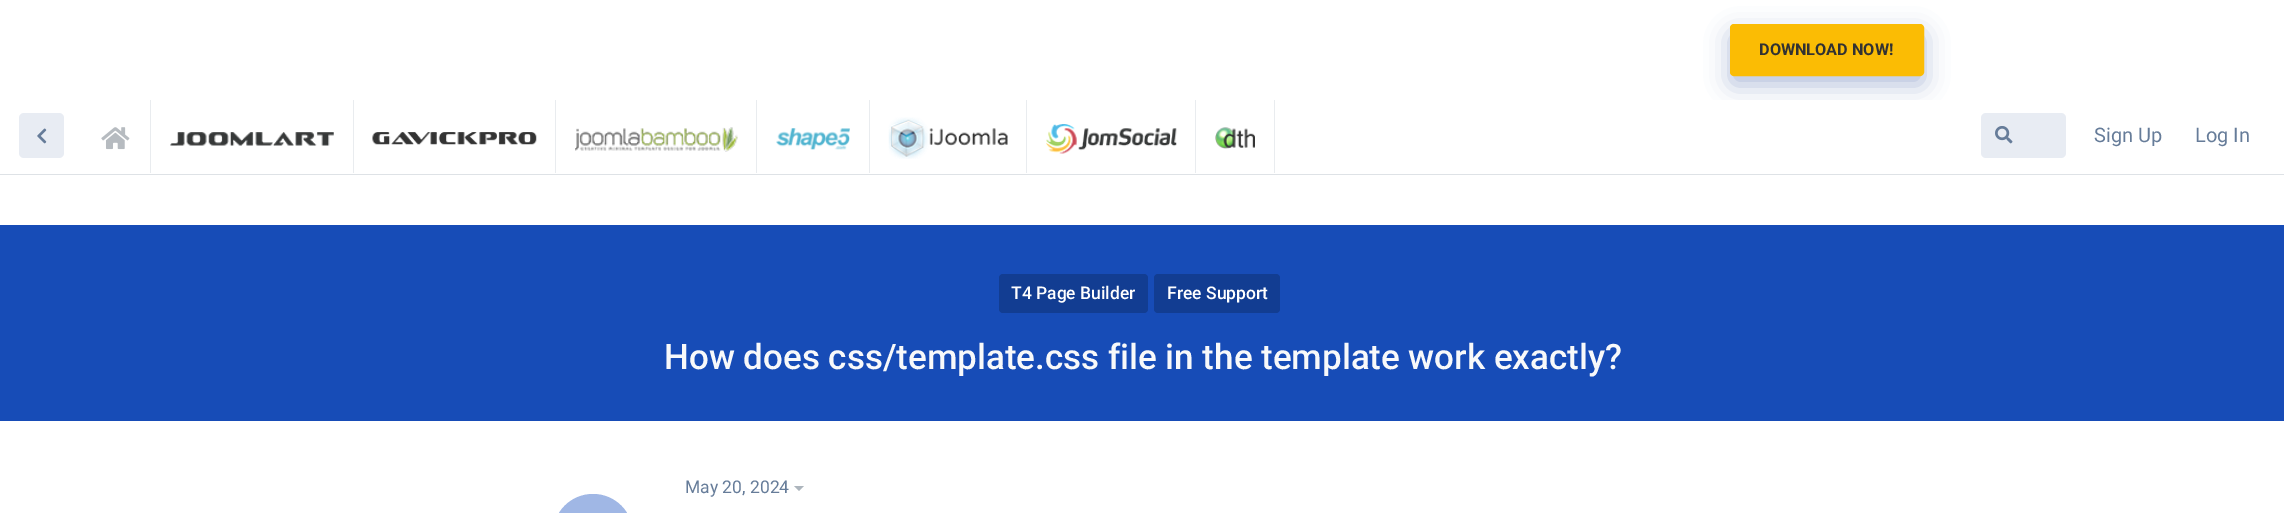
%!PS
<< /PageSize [2284 513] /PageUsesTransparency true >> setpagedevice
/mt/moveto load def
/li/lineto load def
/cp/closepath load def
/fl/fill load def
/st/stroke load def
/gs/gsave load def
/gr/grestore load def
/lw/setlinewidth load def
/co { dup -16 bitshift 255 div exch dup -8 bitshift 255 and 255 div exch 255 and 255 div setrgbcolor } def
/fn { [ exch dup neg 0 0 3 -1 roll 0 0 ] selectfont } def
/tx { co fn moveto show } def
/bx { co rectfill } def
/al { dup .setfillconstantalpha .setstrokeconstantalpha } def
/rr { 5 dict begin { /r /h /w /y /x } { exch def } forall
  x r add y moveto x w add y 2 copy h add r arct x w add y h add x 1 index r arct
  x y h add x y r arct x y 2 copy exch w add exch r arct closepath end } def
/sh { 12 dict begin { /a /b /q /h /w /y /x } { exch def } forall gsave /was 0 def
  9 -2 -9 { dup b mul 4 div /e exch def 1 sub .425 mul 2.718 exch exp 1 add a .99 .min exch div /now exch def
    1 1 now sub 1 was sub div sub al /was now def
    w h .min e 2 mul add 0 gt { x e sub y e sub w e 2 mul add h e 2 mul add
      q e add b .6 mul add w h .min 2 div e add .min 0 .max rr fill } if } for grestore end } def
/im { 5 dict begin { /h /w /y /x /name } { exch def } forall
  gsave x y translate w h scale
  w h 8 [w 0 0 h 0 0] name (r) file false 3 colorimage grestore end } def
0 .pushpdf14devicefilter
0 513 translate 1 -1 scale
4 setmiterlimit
0 0 2284 513 16#FFFFFF bx
gs
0 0 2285 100 rectclip
16#254493 co
1730 33 194 52 4 12 .34 sh
gr
16#FBBC04 co
1731.5 25.5 191 49 2.5 rr gs fl gr
3 lw
st
0 174 2284 1 16#DEE2E6 bx
16#E8ECF3 co
19 113 45 45 5 rr fl
(media/1.raw) 37 128 10 16 im
(media/2.raw) 101 127 29 23 im
1274 100 1 73 16#E9ECEF bx
150 100 1 73 16#E9ECEF bx
(media/3.raw) 170 132 164 14 im
353 100 1 73 16#E9ECEF bx
(media/4.raw) 372 132 165 13 im
555 100 1 73 16#E9ECEF bx
(media/5.raw) 575 127 163 25 im
756 100 1 73 16#E9ECEF bx
(media/6.raw) 776 128 74 22 im
869 100 1 73 16#E9ECEF bx
(media/7.raw) 888 117 120 42 im
1026 100 1 73 16#E9ECEF bx
(media/8.raw) 1046 124 131 30 im
1195 100 1 73 16#E9ECEF bx
(media/9.raw) 1215 127 40 22 im
16#E8ECF3 co
1981 113 85 45 5 rr fl
(media/10.raw) 1995 126 18 18 im
0 225 2284 196 16#174CB7 bx
16#123D92 co
999 274 149 39 4 rr fl
1154 274 126 39 4 rr fl
16#ADB5BD co
794 486 mt 804 486 li 799 491 li cp fl
16#A0B7E5 co
553 494 80 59 40 rr fl
(DOWNLOAD NOW!) 1759 55 /Roboto-Bold 16.25 16#323232 tx
(Sign Up) 2094 142 /Roboto-Regular 20 16#667C99 tx
(Log In) 2195 142 /Roboto-Regular 20 16#667C99 tx
(T4 Page Builder) 1011 299 /Roboto-Medium 17.5 16#FFFFFF tx
(Free Support) 1167 299 /Roboto-Medium 17.5 16#FFFFFF tx
(How does css/template.css file in the template work exactly?) 664 369 /Roboto-Medium 35 16#F8F9FA tx
(May 20, 2024) 685 493 /Roboto-Regular 17.5 16#667C99 tx
.poppdf14devicefilter showpage
